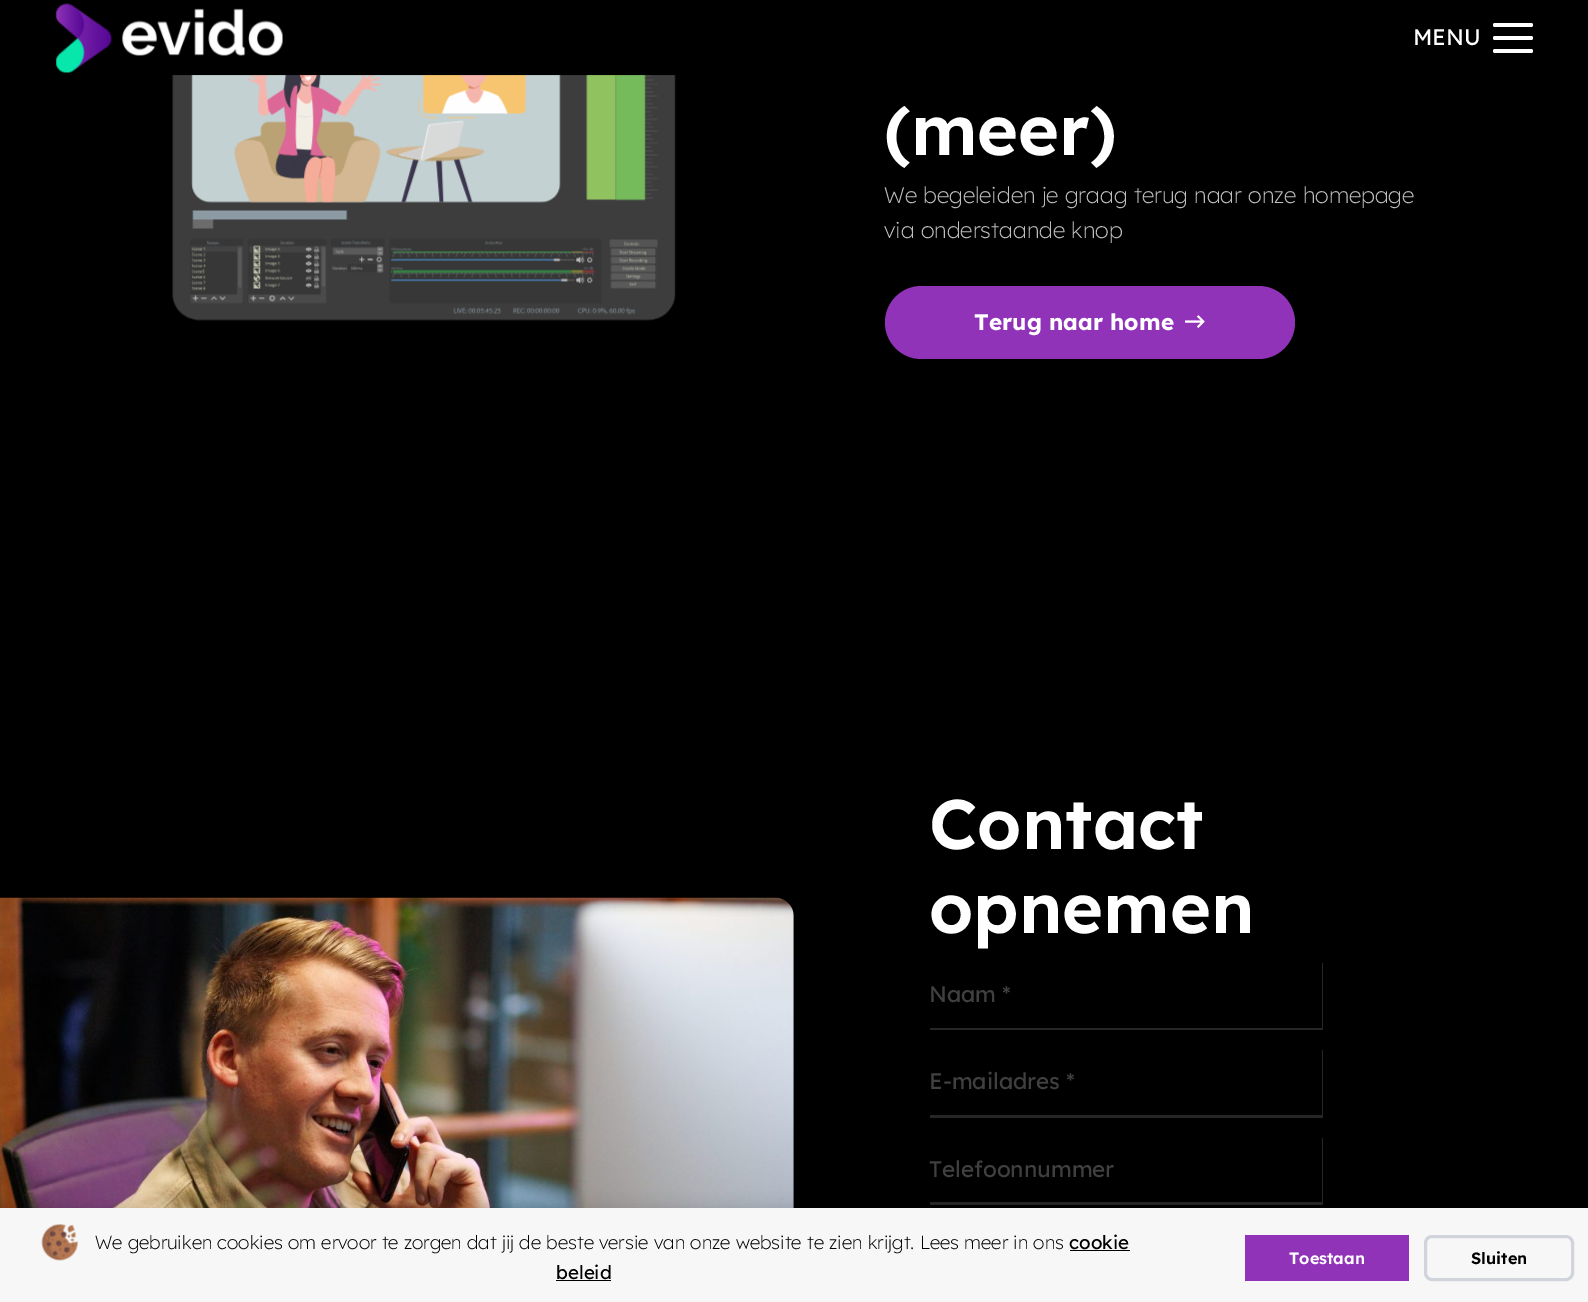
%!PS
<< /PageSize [1588 1302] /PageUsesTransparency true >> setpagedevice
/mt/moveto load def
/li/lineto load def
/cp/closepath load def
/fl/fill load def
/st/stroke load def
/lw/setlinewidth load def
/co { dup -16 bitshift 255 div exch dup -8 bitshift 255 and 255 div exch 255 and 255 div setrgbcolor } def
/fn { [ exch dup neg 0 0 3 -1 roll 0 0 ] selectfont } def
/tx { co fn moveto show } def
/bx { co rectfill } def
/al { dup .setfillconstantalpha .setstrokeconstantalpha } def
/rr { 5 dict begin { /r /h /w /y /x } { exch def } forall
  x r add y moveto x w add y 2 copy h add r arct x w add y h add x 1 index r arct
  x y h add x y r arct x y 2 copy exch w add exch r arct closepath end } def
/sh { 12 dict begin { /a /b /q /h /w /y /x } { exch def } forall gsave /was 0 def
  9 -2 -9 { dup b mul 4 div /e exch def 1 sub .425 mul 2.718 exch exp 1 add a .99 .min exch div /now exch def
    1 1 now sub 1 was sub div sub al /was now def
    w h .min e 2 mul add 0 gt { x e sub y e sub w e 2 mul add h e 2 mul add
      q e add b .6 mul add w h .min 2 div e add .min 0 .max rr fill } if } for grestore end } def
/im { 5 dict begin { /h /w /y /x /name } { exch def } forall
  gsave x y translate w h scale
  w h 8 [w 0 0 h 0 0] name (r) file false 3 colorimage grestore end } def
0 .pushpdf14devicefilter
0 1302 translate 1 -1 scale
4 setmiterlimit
0 0 1588 1302 16#000000 bx
(media/2.raw) 172 75 504 246 im
0.08 al
0 75 mt 0 76 li 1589 76 li 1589 1 li 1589 75 li cp fl
1 al
(media/1.raw) 56 3 227 70 im
16#FFFFFF co
1493 36 40 4 2 rr fl
1493 23 40 4 2 rr fl
1493 49 40 4 2 rr fl
16#9033B8 co
885 286 410 73 36.5 rr fl
(media/3.raw) 1185 315 20 13 im
(media/4.raw) 0 897 794 311 im
16#262626 co
930 1028 mt 930 1030 li 1323 1030 li 1323 963 li 1322 963 li 1322 1028 li cp fl
930 1115 mt 930 1118 li 1323 1118 li 1323 1050 li 1322 1050 li 1322 1115 li cp fl
930 1202 mt 930 1205 li 1323 1205 li 1323 1138 li 1322 1138 li 1322 1202 li cp fl
16#000000 co
0 1205 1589 95 0 6 .08 sh
0 1208 1588 94 16#F7F7F7 bx
(media/5.raw) 41 1224 37 37 im
1070 1250 60 1 16#000000 bx
556 1280 55 1 16#000000 bx
1245 1235 164 46 16#9033B8 bx
16#D1D5DB co
3 lw
1425.5 1236.5 147 43 6.5 rr st
(MENU) 1413 45 /Lexend-Regular 22.5 16#FFFFFF tx
(\(meer\)) 884 155 /Lexend-SemiBold 70 16#FFFFFF tx
(We begeleiden je graag terug naar onze homepage) 884 203 /Lexend-ExtraLight 22.5 16#BFBFBF tx
(via onderstaande knop) 884 238 /Lexend-ExtraLight 22.5 16#BFBFBF tx
(Terug naar home) 974 330 /Lexend-Bold 22.5 16#FFFFFF tx
(Contact) 929 849 /Lexend-SemiBold 70 16#FFFFFF tx
(opnemen) 929 933 /Lexend-SemiBold 70 16#FFFFFF tx
(Naam *) 929 1002 /Lexend-Regular 22.5 16#404040 tx
(E-mailadres *) 929 1089 /Lexend-Regular 22.5 16#404040 tx
(Telefoonnummer) 929 1177 /Lexend-Regular 22.5 16#404040 tx
(We gebruiken cookies om ervoor te zorgen dat jij de beste versie van onze website te zien krijgt. Lees meer in ons) 95 1249 /Lexend-ExtraLight 18.75 16#000000 tx
(cookie) 1069 1249 /Lexend-Regular 18.75 16#000000 tx
(beleid) 556 1279 /Lexend-Regular 18.75 16#000000 tx
(Toestaan) 1289 1264 /Lexend-SemiBold 16.25 16#FFFFFF tx
(Sluiten) 1471 1264 /Lexend-SemiBold 16.25 16#000000 tx
.poppdf14devicefilter showpage
